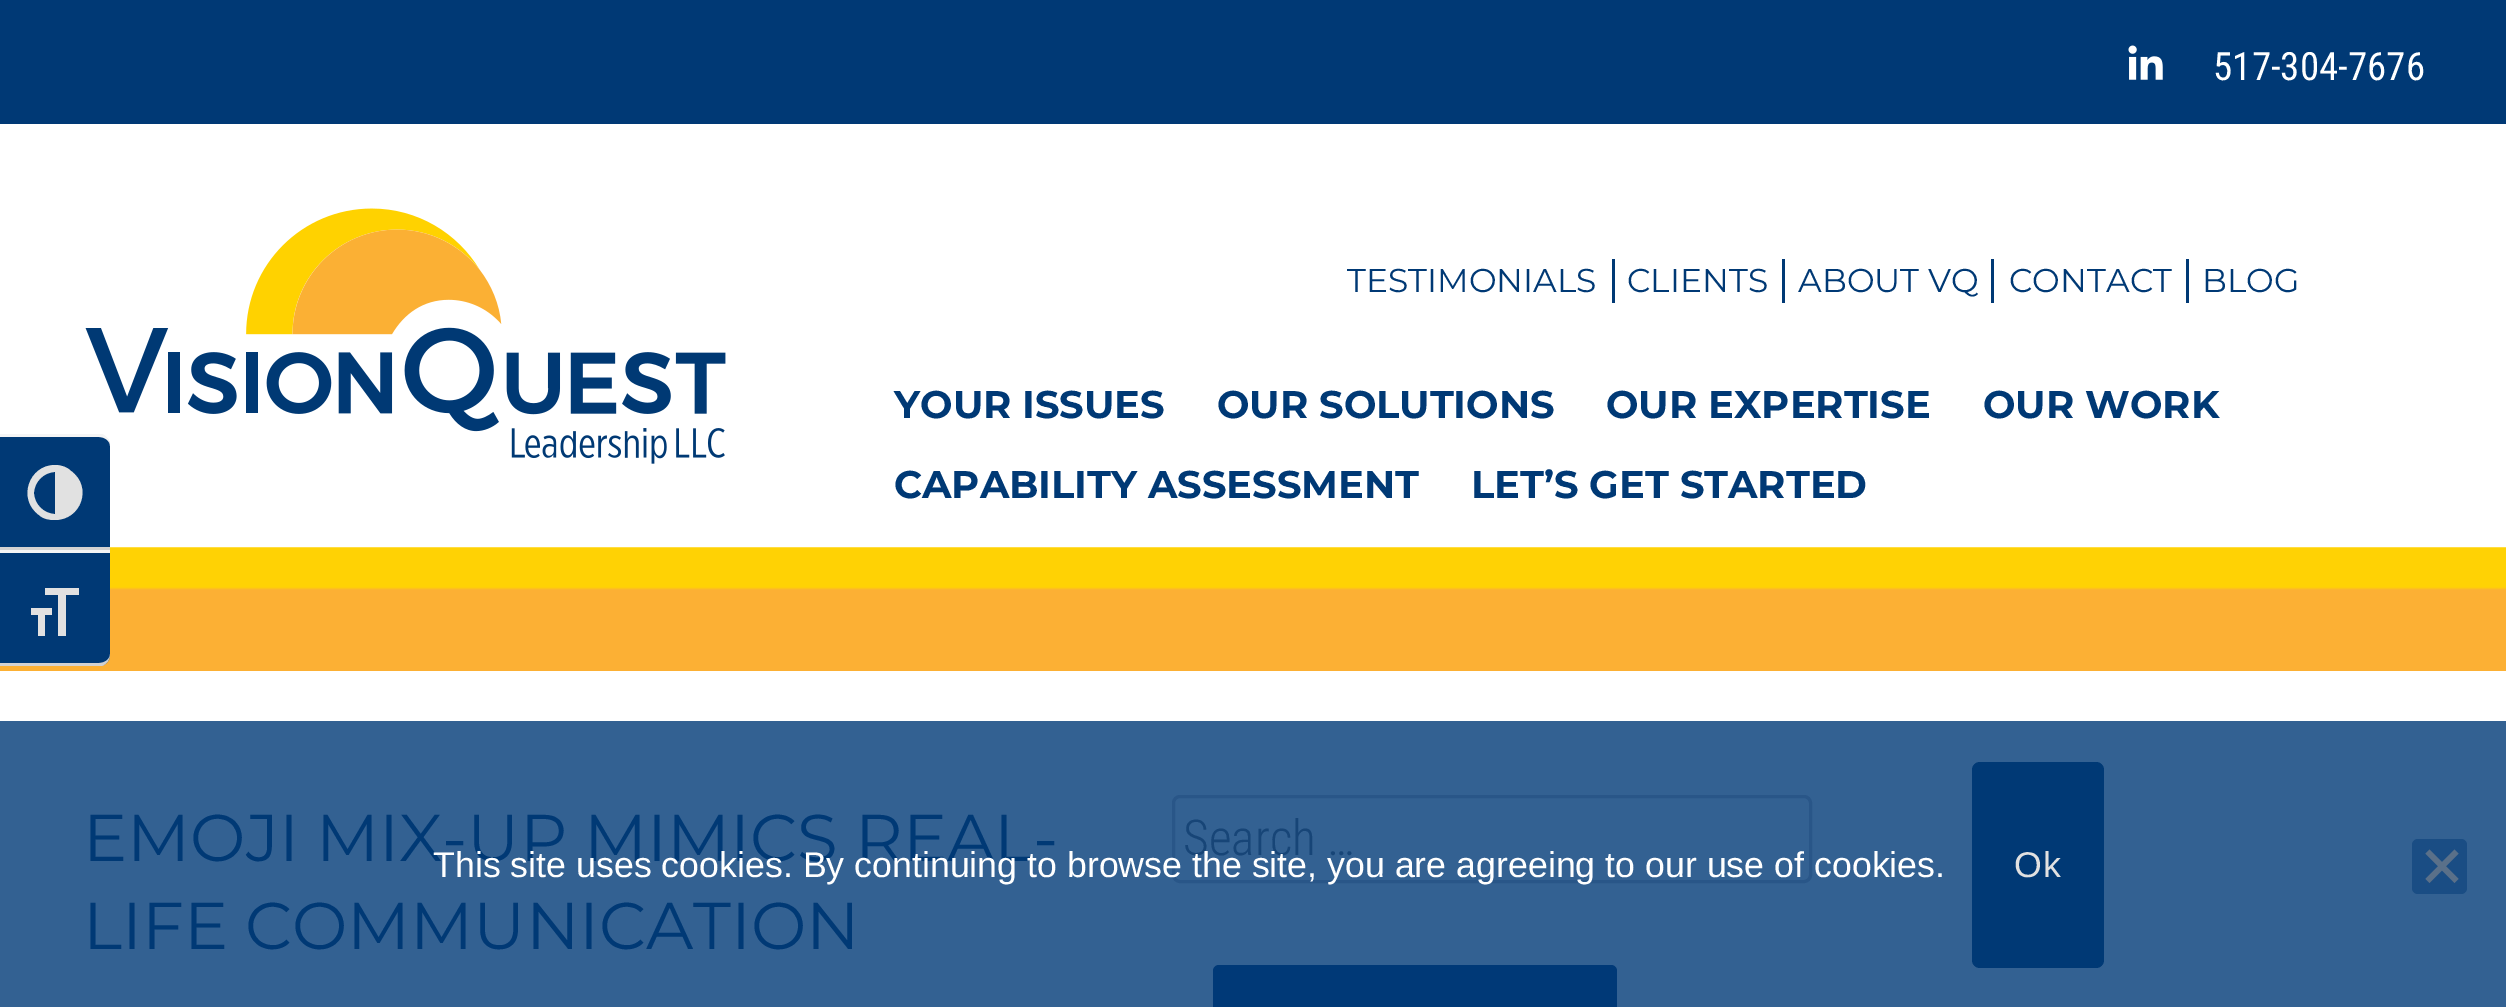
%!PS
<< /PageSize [2506 1007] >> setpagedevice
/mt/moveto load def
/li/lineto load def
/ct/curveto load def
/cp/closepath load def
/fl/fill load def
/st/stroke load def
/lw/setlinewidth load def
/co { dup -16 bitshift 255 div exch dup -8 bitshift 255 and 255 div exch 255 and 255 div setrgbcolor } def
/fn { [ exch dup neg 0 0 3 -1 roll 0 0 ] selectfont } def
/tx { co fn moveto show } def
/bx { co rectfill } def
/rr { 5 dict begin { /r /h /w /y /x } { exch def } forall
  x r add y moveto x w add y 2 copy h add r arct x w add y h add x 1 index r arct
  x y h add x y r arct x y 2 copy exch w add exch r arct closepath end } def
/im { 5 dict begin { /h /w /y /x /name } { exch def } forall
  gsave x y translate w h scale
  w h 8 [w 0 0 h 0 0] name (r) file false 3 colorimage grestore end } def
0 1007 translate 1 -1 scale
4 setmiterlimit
0 0 2506 1007 16#FFFFFF bx
0 721 2506 286 16#336192 bx
(media/2.raw) 85 208 641 256 im
(media/3.raw) 0 547 2506 124 im
16#003975 co
0 435 mt 99 435 li 105 435 110 440 110 446 ct 110 550 li 0 550 li cp fl
16#F5F5F5 co
0 437 mt 99 437 li 105 437 110 441 110 446 ct 110 440 107 436 102 434 ct 0 434 li cp fl
0 547 110 3 16#D2D2D2 bx
16#E1E1E1 co
55 465 mt 29 465 17 499 39 515 ct 43 519 49 520 55 520 ct 81 520 93 487 71 471 ct 67 467 61 465 55 465 ct cp 34 493 mt 34 482 44 472 55 472 ct 55 514 li 44 514 34 504 34 493 ct cp fl
16#003975 co
0 550 mt 110 550 li 110 655 li 110 661 105 666 99 666 ct 0 666 li cp fl
0 550 110 3 16#F5F5F5 bx
16#D2D2D2 co
102 666 mt 107 664 110 660 110 654 ct 110 659 105 663 99 663 ct 0 663 li 0 666 li cp fl
16#E1E1E1 co
31 608 mt 52 608 li 52 615 li 45 615 li 45 636 li 38 636 li 38 615 li 31 615 li cp 79 595 mt 66 595 li 66 636 li 58 636 li 58 595 li 45 595 li 45 588 li 79 588 li cp fl
0 0 2506 124 16#003975 bx
(media/1.raw) 2128 45 35 35 im
1612 259 3 44 16#003975 bx
1782 259 3 44 16#003975 bx
1991 259 3 44 16#003975 bx
2186 259 3 44 16#003975 bx
16#295688 co
3 lw
1173.5 796.5 637 85 6.5 rr st
16#003977 co
1213 965 404 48 6 rr fl
16#003975 co
1972 762 132 206 8 rr fl
16#1A4D84 co
2412 839 55 55 6 rr fl
16#5A7089 co
2454.5 849.5 mt 2458.5 853.5 li 2429.5 883 li 2425.5 879 li cp fl
2425.5 853.5 mt 2429.5 849.5 li 2458.5 879 li 2454.5 883 li cp fl
(517-304-7676) 2213 80 /RobotoCondensed-Regular 39 16#FFFFFF tx
(TESTIMONIALS) 1347 292 /Montserrat-Regular 33 16#003975 tx
(CLIENTS) 1627 292 /Montserrat-Regular 33 16#003975 tx
(ABOUT VQ) 1798 292 /Montserrat-Regular 33 16#003975 tx
(CONTACT) 2009 292 /Montserrat-Regular 33 16#003975 tx
(BLOG) 2202 292 /Montserrat-Regular 33 16#003975 tx
(YOUR ISSUES) 894 418 /Montserrat-Bold 38.5 16#003975 tx
(OUR SOLUTIONS) 1217 418 /Montserrat-Bold 38.5 16#003975 tx
(OUR EXPERTISE) 1606 418 /Montserrat-Bold 38.5 16#003975 tx
(OUR WORK) 1983 418 /Montserrat-Bold 38.5 16#003975 tx
(CAPABILITY ASSESSMENT) 894 498 /Montserrat-Bold 38.5 16#003975 tx
(LET’S GET STARTED) 1471 498 /Montserrat-Bold 38.5 16#003975 tx
(EMOJI MIX-UP MIMICS REAL-) 83 861 /Montserrat-Regular 66 16#003975 tx
(LIFE COMMUNICATION) 83 949 /Montserrat-Regular 66 16#003975 tx
(Search …) 1183 855 /RobotoCondensed-Light 49.5 16#174577 tx
(This site uses cookies. By continuing to browse the site, you are agreeing to our use of cookies.) 433 877 /LiberationSans-Regular 35.75 16#FFFFFF tx
16#E1E1E1 co
2014 877 mt 1 0 (Ok) ashow
showpage
